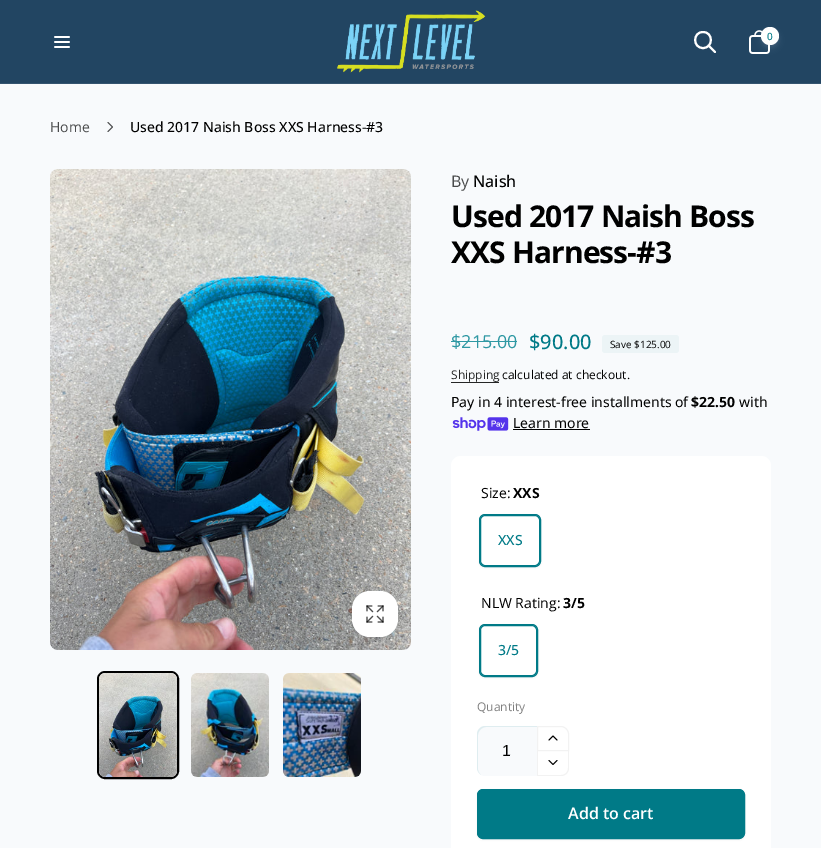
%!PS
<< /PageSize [821 848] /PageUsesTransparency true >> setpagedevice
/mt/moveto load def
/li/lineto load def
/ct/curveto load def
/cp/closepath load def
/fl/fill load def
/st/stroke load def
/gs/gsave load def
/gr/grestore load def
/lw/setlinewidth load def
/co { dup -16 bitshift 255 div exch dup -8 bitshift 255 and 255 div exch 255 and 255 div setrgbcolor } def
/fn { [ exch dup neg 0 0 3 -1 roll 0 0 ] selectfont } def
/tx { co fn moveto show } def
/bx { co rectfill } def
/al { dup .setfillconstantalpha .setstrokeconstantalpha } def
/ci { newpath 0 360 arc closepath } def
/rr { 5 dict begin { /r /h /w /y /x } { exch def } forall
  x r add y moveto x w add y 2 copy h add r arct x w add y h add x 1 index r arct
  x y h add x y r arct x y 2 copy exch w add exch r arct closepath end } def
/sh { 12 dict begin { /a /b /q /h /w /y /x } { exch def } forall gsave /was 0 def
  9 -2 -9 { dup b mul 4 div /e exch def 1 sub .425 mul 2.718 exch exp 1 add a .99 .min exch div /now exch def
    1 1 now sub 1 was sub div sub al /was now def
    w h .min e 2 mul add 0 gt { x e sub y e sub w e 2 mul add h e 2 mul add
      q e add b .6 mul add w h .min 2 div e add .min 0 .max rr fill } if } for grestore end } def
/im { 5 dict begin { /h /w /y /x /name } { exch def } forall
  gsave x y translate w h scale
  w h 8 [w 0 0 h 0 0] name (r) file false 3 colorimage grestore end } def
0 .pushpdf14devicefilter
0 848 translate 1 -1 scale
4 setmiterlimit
0 0 821 848 16#F8FAFC bx
0 0 821 83 16#224562 bx
0 83 821 1 16#34546F bx
(media/1.raw) 54 36 16 12 im
(media/2.raw) 337 10 149 63 im
16#FFFFFF co
2 lw
1 setlinecap
1 setlinejoin
715 52 mt 708.5 45.5 li 703 48 mt 713.5 48 713.5 32 703 32 ct 692.5 32 692.5 48 703 48 ct cp st
(media/3.raw) 749 30 21 24 im
762 30 16 16 8 2 .06 sh
762 32 16 16 8 3 .1 sh
770 36 9 ci fl
16#4A4B4C co
1 lw
108 122.5 mt 112.5 127 li 108 131.5 li st
(media/4.raw) 50 169 361 481 im
16#000000 co
352 592 46 46 18 1 .06 sh
352 592 46 46 18 1.5 .1 sh
16#FFFFFF co
352 591 46 46 18 rr fl
(media/5.raw) 366 605 18 18 im
16#000000 co
2 lw
0 setlinecap
0 setlinejoin
98 672 80 106 7 rr st
(media/6.raw) 99 673 78 104 im
(media/7.raw) 191 673 78 104 im
(media/8.raw) 283 673 78 104 im
451 341 66 1 16#2F98A3 bx
16#ECF4F6 co
602 335 77 18 3 rr fl
451 382 48 1 16#252626 bx
(media/9.raw) 452 417 57 14 im
513 429 77 1 16#000000 bx
16#FFFFFF co
451 456 320 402 10 rr fl
16#000000 co
479 515 62 53 6 1 .05 sh
16#FFFFFF co
479.5 514.5 61 52 5.5 rr gs fl gr
16#007A87 co
1 lw
st
480.5 515.5 59 50 4.5 rr st
16#000000 co
479 625 59 53 6 1 .05 sh
16#FFFFFF co
479.5 624.5 58 52 5.5 rr gs fl gr
16#007A87 co
st
480.5 625.5 56 50 4.5 rr st
16#F8FAFC co
485 726 mt 537 726 li 537 776 li 485 776 li 480.5 776 477 772.5 477 768 ct 477 734 li 477 729.5 480.5 726 485 726 ct cp fl
16#DFEDF0 co
486 727 mt 537 727 li 537 726 li 485 726 li 481 726 477 730 477 734 ct 477 768 li 477 771 479 773 481 775 ct 479 773 478 771 478 769 ct 478 735 li 478 731 482 727 486 727 ct cp fl
16#F2F2F2 co
537.5 726.5 mt 561 726.5 li 565 726.5 568.5 730 568.5 734 ct 568.5 750.5 li 537.5 750.5 li cp st
537 751 mt 569 751 li 569 768 li 569 772.5 565.5 776 561 776 ct 537 776 li cp 538 751 mt 568 751 li 568 768 li 568 772 565 775 561 775 ct 538 775 li cp eofill
16#000000 co
.8 lw
1 setlinecap
1 setlinejoin
557 740 mt 553 736 li 549 740 li 557 760.5 mt 553 764.5 li 549 760.5 li st
477 790 268 50 6 1 .05 sh
16#007A87 co
477.5 789.5 267 49 5.5 rr gs fl gr
1 lw
0 setlinecap
0 setlinejoin
st
(0) 767 40 /OpenSans-Medium 10 16#007A87 tx
(Home) 50 132 /OpenSans-Regular 14 16#4A4B4C tx
(Used 2017 Naish Boss XXS Harness-#3) 130 132 /OpenSans-Medium 14 16#000000 tx
(By) 451 187 /OpenSans-Regular 16 16#4A4B4C tx
(Naish) 473 187 /OpenSans-Medium 16 16#000000 tx
/OpenSans-Bold 30 fn
451 227 mt -.9 0 (Used 2017 Naish Boss) ashow
451 263 mt -.9 0 (XXS Harness-#3) ashow
($215.00) 451 348 /OpenSans-Regular 18 16#2F98A3 tx
($90.00) 529 349 /OpenSans-Medium 20 16#007A87 tx
(Save $125.00) 610 348 /OpenSans-Regular 10 16#000000 tx
(Shipping) 451 379 /OpenSans-Regular 12 16#252626 tx
(calculated at checkout.) 502 379 /OpenSans-Regular 12 16#000000 tx
(Pay in 4 interest-free installments of) 451 407 /NotoSans-Regular 14 16#000000 tx
($22.50) 691 407 /NotoSans-Bold 14 16#000000 tx
(with) 739 407 /NotoSans-Regular 14 16#000000 tx
(Learn more) 513 428 /NotoSans-Regular 14 16#000000 tx
(Size:) 481 498 /OpenSans-Regular 14 16#000000 tx
(XXS) 513 498 /OpenSans-Bold 14 16#000000 tx
(XXS) 498 545 /OpenSans-Medium 14 16#007A87 tx
(NLW Rating:) 481 608 /OpenSans-Regular 14 16#000000 tx
(3/5) 563 608 /OpenSans-Bold 14 16#000000 tx
(3/5) 498 655 /OpenSans-Medium 14 16#007A87 tx
(Quantity) 477 711 /OpenSans-Regular 12 16#808080 tx
(1) 502 756 /LiberationSans-Regular 16 16#000000 tx
(Add to cart) 568 819 /OpenSans-SemiBold 16 16#FFFFFF tx
.poppdf14devicefilter showpage
